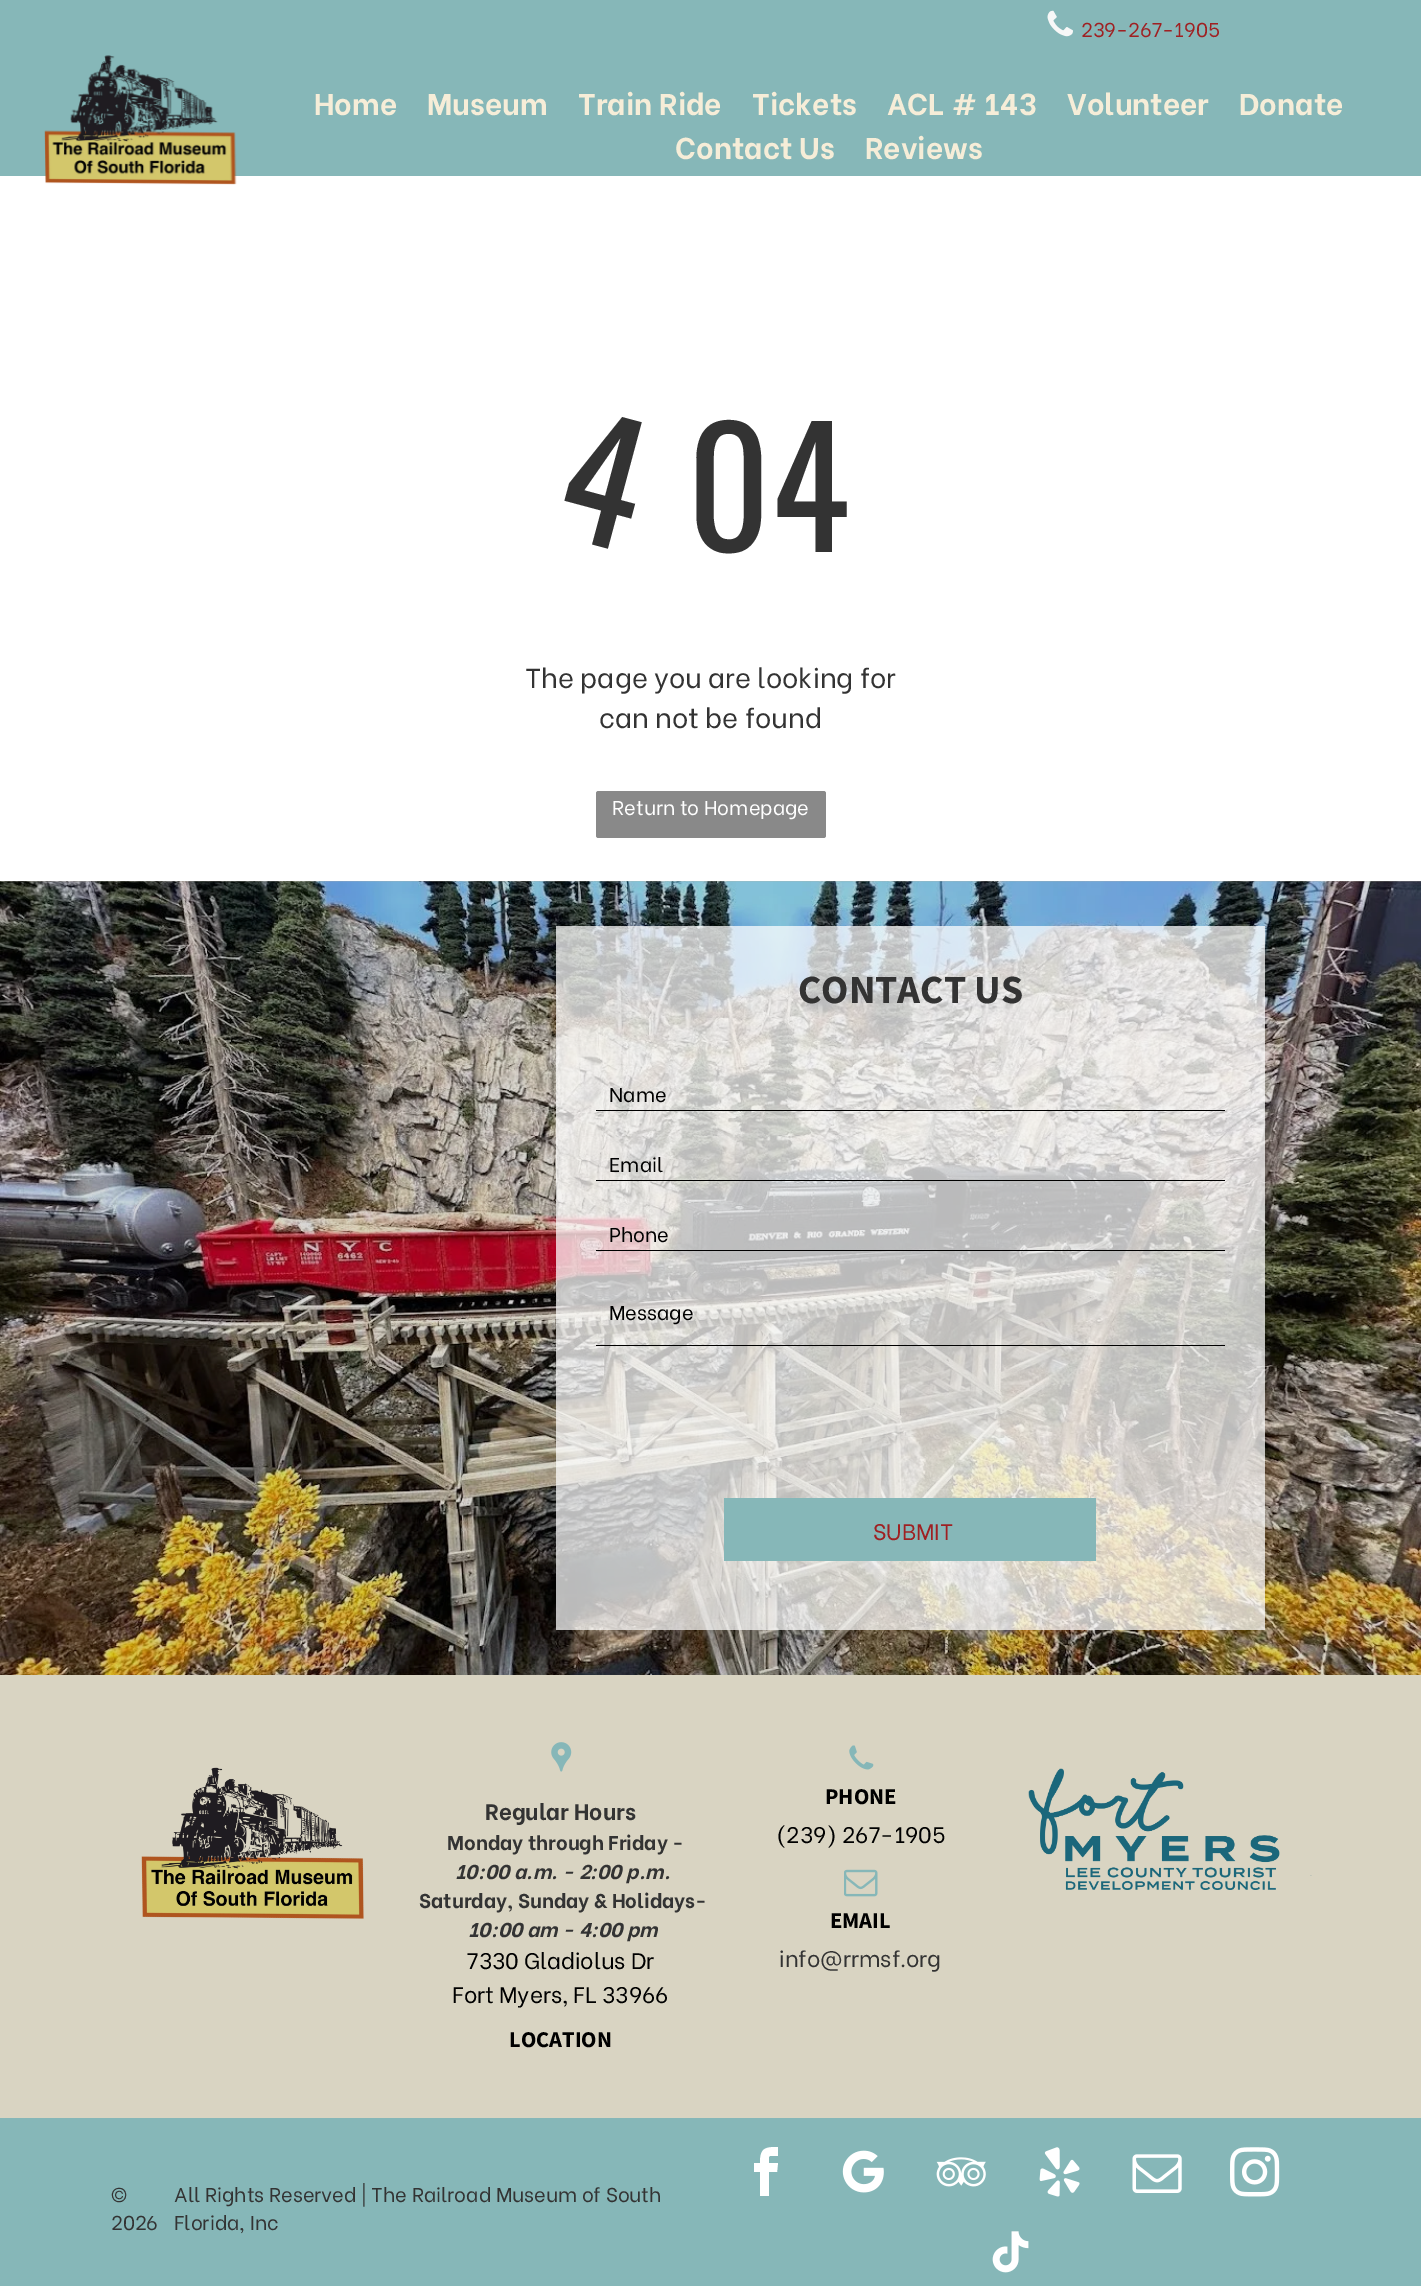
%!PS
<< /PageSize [1421 2286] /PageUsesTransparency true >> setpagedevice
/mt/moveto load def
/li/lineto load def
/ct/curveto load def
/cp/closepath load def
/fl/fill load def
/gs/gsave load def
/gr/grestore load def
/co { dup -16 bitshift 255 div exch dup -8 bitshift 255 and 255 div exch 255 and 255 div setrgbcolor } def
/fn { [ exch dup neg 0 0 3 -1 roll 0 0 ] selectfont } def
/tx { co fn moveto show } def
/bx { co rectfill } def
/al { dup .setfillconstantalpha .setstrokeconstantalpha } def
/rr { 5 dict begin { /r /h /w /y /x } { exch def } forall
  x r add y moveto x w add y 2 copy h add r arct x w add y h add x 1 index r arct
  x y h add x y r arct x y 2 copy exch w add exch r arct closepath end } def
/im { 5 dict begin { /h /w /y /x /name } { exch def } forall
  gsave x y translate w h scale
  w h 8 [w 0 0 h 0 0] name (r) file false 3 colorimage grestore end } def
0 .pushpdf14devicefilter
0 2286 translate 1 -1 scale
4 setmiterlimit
0 0 1421 2286 16#FFFFFF bx
0 0 1421 176 16#86B7B8 bx
(media/1.raw) 1047 10 26 27 im
(media/2.raw) 44 55 193 130 im
16#898989 co
596 791 230 47 2.5 rr fl
0 881 1421 1237 16#D9D4C2 bx
(media/3.raw) 0 881 1421 794 im
0.73 al
556 926 709 704 16#FFFFFF bx
1 al
596 1110 629 1 16#000000 bx
596 1180 629 1 16#000000 bx
596 1250 629 1 16#000000 bx
596 1345 629 1 16#000000 bx
724 1498 372 63 16#86B7B8 bx
(media/4.raw) 141 1767 223 152 im
(media/5.raw) 551 1742 21 30 im
(media/6.raw) 849 1745 25 25 im
(media/7.raw) 844 1869 34 28 im
(media/8.raw) 1028 1768 284 122 im
0 2118 1421 168 16#86B7B8 bx
16#FFFFFF co
770 2156 mt 778 2156 li 778 2147 li 765 2147 760 2148 760 2163 ct 754 2163 li 754 2172 li 760 2172 li 760 2196 li 769 2196 li 769 2172 li 777 2172 li 778 2163 li 769 2163 li 769 2161 768 2156 770 2156 ct cp fl
(media/9.raw) 842 2150 42 43 im
(media/10.raw) 936 2157 50 30 im
(media/11.raw) 1039 2147 41 50 im
(media/12.raw) 1132 2154 50 39 im
(media/13.raw) 1230 2147 50 50 im
(media/14.raw) 992 2231 37 42 im
(239-267-1905) 1081 37 /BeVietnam-Regular 20 16#9F2022 tx
(Home) 314 115 /BeVietnam-Bold 30 16#F6EDD8 tx
(Museum) 427 115 /BeVietnam-Bold 30 16#F6EDD8 tx
(Train Ride) 578 115 /BeVietnam-Bold 30 16#F6EDD8 tx
(Tickets) 752 115 /BeVietnam-Bold 30 16#F6EDD8 tx
(ACL # 143) 887 115 /BeVietnam-Bold 30 16#F6EDD8 tx
(Volunteer) 1067 115 /BeVietnam-Bold 30 16#F6EDD8 tx
(Donate) 1239 115 /BeVietnam-Bold 30 16#F6EDD8 tx
(Contact Us) 675 159 /BeVietnam-Bold 30 16#F6EDD8 tx
(Reviews) 865 159 /BeVietnam-Bold 30 16#F6EDD8 tx
/Oswald-Regular 162 fn
16#333333 co
gs 549 533 translate 15 rotate 0 0 mt (4) show gr
(04) 687 552 /Oswald-Regular 162 16#333333 tx
(The page you are looking for) 525 688 /BeVietnam-Regular 27.5 16#333333 tx
(can not be found) 599 728 /BeVietnam-Regular 27.5 16#333333 tx
(Return to Homepage) 612 815 /BeVietnam-Regular 20 16#FFFFFF tx
(CONTACT US) 798 1003 /SourceSansPro-Bold 40 16#333333 tx
(Name) 609 1102 /BeVietnam-Regular 20 16#000000 tx
(Email) 609 1172 /BeVietnam-Regular 20 16#000000 tx
(Phone) 609 1242 /BeVietnam-Regular 20 16#000000 tx
(Message) 609 1320 /BeVietnam-Regular 20 16#000000 tx
(SUBMIT) 873 1540 /BeVietnam-Regular 22.5 16#9F2022 tx
(Regular Hours) 485 1820 /BeVietnam-Bold 22.5 16#333333 tx
(Monday through Friday -) 447 1850 /BeVietnam-Bold 20 16#333333 tx
(10:00 a.m. - 2:00 p.m.) 455 1879 /BeVietnam-BoldItalic 20 16#333333 tx
(Saturday, Sunday & Holidays-) 419 1908 /BeVietnam-Bold 20 16#333333 tx
(10:00 am - 4:00 pm) 468 1937 /BeVietnam-BoldItalic 20 16#333333 tx
(7330 Gladiolus Dr) 467 1969 /BeVietnam-Regular 22.5 16#000000 tx
(Fort Myers, FL 33966) 452 2003 /BeVietnam-Regular 22.5 16#000000 tx
(LOCATION) 509 2047 /SourceSansPro-Bold 22.5 16#000000 tx
(PHONE) 825 1804 /SourceSansPro-Bold 22.5 16#000000 tx
(\(239\) 267-1905) 776 1843 /BeVietnam-Regular 22.5 16#000000 tx
(EMAIL) 830 1928 /SourceSansPro-Bold 22.5 16#000000 tx
(info@rrmsf.org) 779 1967 /BeVietnam-Regular 22.5 16#333333 tx
(©) 111 2202 /BeVietnam-Regular 20 16#333333 tx
(2026) 111 2230 /BeVietnam-Regular 20 16#333333 tx
(All Rights Reserved | The Railroad Museum of South) 174 2202 /BeVietnam-Regular 20 16#333333 tx
(Florida, Inc) 174 2230 /BeVietnam-Regular 20 16#333333 tx
.poppdf14devicefilter showpage
